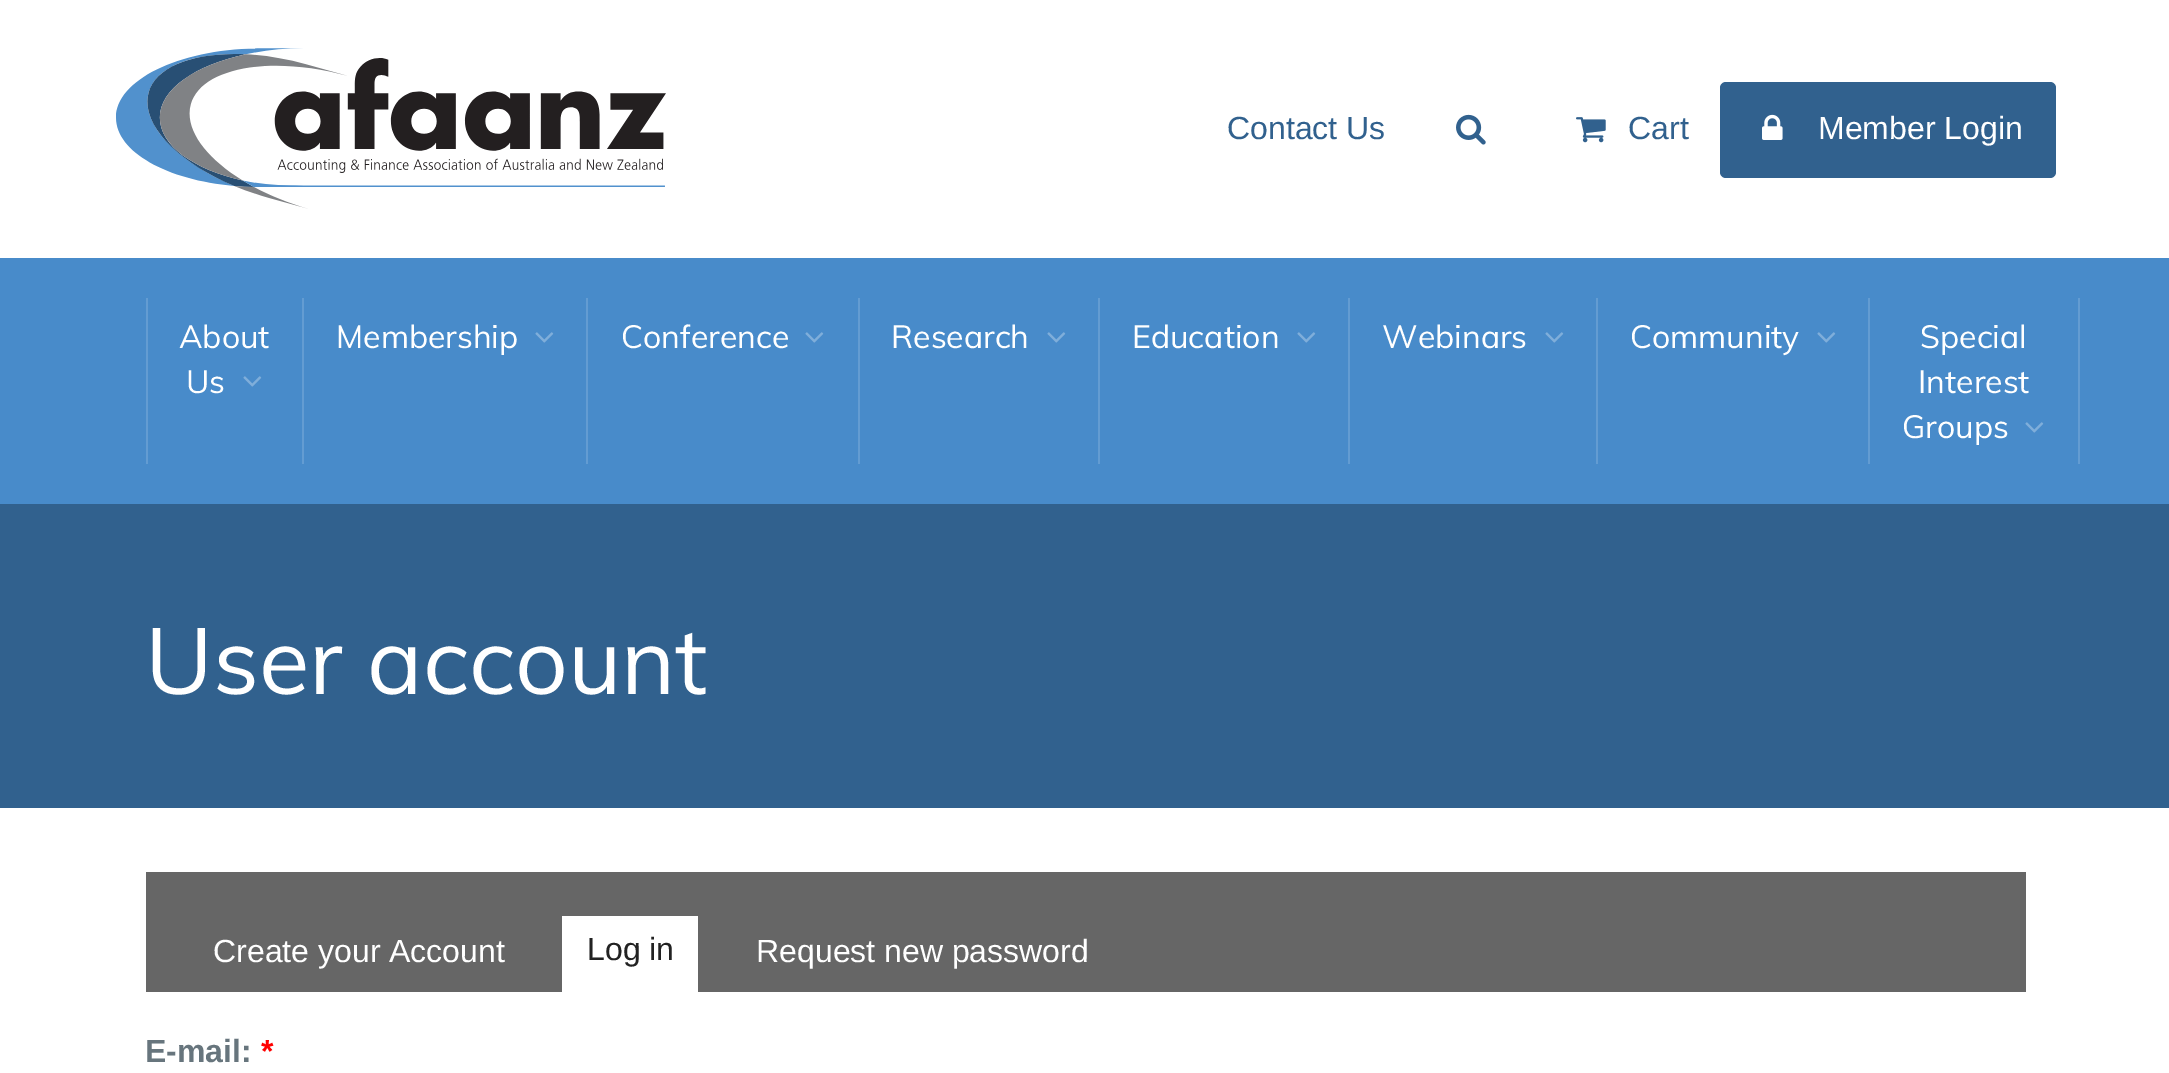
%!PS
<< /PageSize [2169 1073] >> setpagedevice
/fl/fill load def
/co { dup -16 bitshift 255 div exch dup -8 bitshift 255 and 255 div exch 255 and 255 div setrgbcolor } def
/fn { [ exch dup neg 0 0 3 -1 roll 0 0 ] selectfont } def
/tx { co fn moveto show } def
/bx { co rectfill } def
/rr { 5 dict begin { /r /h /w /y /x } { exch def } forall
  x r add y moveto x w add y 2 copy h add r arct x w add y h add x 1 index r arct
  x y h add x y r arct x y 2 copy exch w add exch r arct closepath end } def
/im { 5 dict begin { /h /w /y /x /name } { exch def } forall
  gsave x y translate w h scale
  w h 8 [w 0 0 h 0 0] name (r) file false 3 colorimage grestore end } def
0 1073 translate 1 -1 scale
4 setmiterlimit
0 0 2169 1073 16#FFFFFF bx
(media/1.raw) 116 48 550 161 im
(media/2.raw) 1456 114 30 31 im
(media/3.raw) 1576 117 30 26 im
16#31618E co
1720 82 336 96 6 rr fl
(media/4.raw) 1762 114 21 26 im
0 258 2169 246 16#488BCA bx
302 298 2 166 16#639CD2 bx
146 298 2 166 16#639CD2 bx
(media/5.raw) 243 376 19 11 im
586 298 2 166 16#639CD2 bx
(media/5.raw) 535 332 19 11 im
858 298 2 166 16#639CD2 bx
(media/5.raw) 805 332 19 11 im
1098 298 2 166 16#639CD2 bx
(media/5.raw) 1047 332 19 11 im
1348 298 2 166 16#639CD2 bx
(media/5.raw) 1297 332 19 11 im
1596 298 2 166 16#639CD2 bx
(media/5.raw) 1545 332 19 11 im
1868 298 2 166 16#639CD2 bx
(media/5.raw) 1817 332 19 11 im
2078 298 2 166 16#639CD2 bx
(media/5.raw) 2025 422 19 11 im
0 504 2169 304 16#31618E bx
146 872 1880 120 16#666666 bx
562 916 136 76 16#FFFFFF bx
(Contact Us) 1227 139 /LiberationSans-Regular 32 16#31618E tx
(Cart) 1628 139 /LiberationSans-Regular 32 16#31618E tx
(Member Login) 1818 139 /LiberationSans-Regular 32 16#FFFFFF tx
(About) 179 348 /Muli-Regular 32 16#FFFFFF tx
(Us) 186 393 /Muli-Regular 32 16#FFFFFF tx
(Membership) 336 348 /Muli-Regular 32 16#FFFFFF tx
(Conference) 621 348 /Muli-Regular 32 16#FFFFFF tx
(Research) 891 348 /Muli-Regular 32 16#FFFFFF tx
(Education) 1132 348 /Muli-Regular 32 16#FFFFFF tx
(Webinars) 1382 348 /Muli-Regular 32 16#FFFFFF tx
(Community) 1630 348 /Muli-Regular 32 16#FFFFFF tx
(Special) 1920 348 /Muli-Regular 32 16#FFFFFF tx
(Interest) 1918 393 /Muli-Regular 32 16#FFFFFF tx
(Groups) 1902 438 /Muli-Regular 32 16#FFFFFF tx
(User account) 145 694 /Muli-Regular 92.75 16#FFFFFF tx
(Create your Account) 213 962 /LiberationSans-Regular 32 16#FFFFFF tx
(Log in) 587 960 /LiberationSans-Regular 32 16#222222 tx
(Request new password) 756 962 /LiberationSans-Regular 32 16#FFFFFF tx
(E-mail:) 145 1062 /LiberationSans-Bold 32 16#67757D tx
(*) 261 1062 /LiberationSans-Bold 32 16#FF0000 tx
showpage
